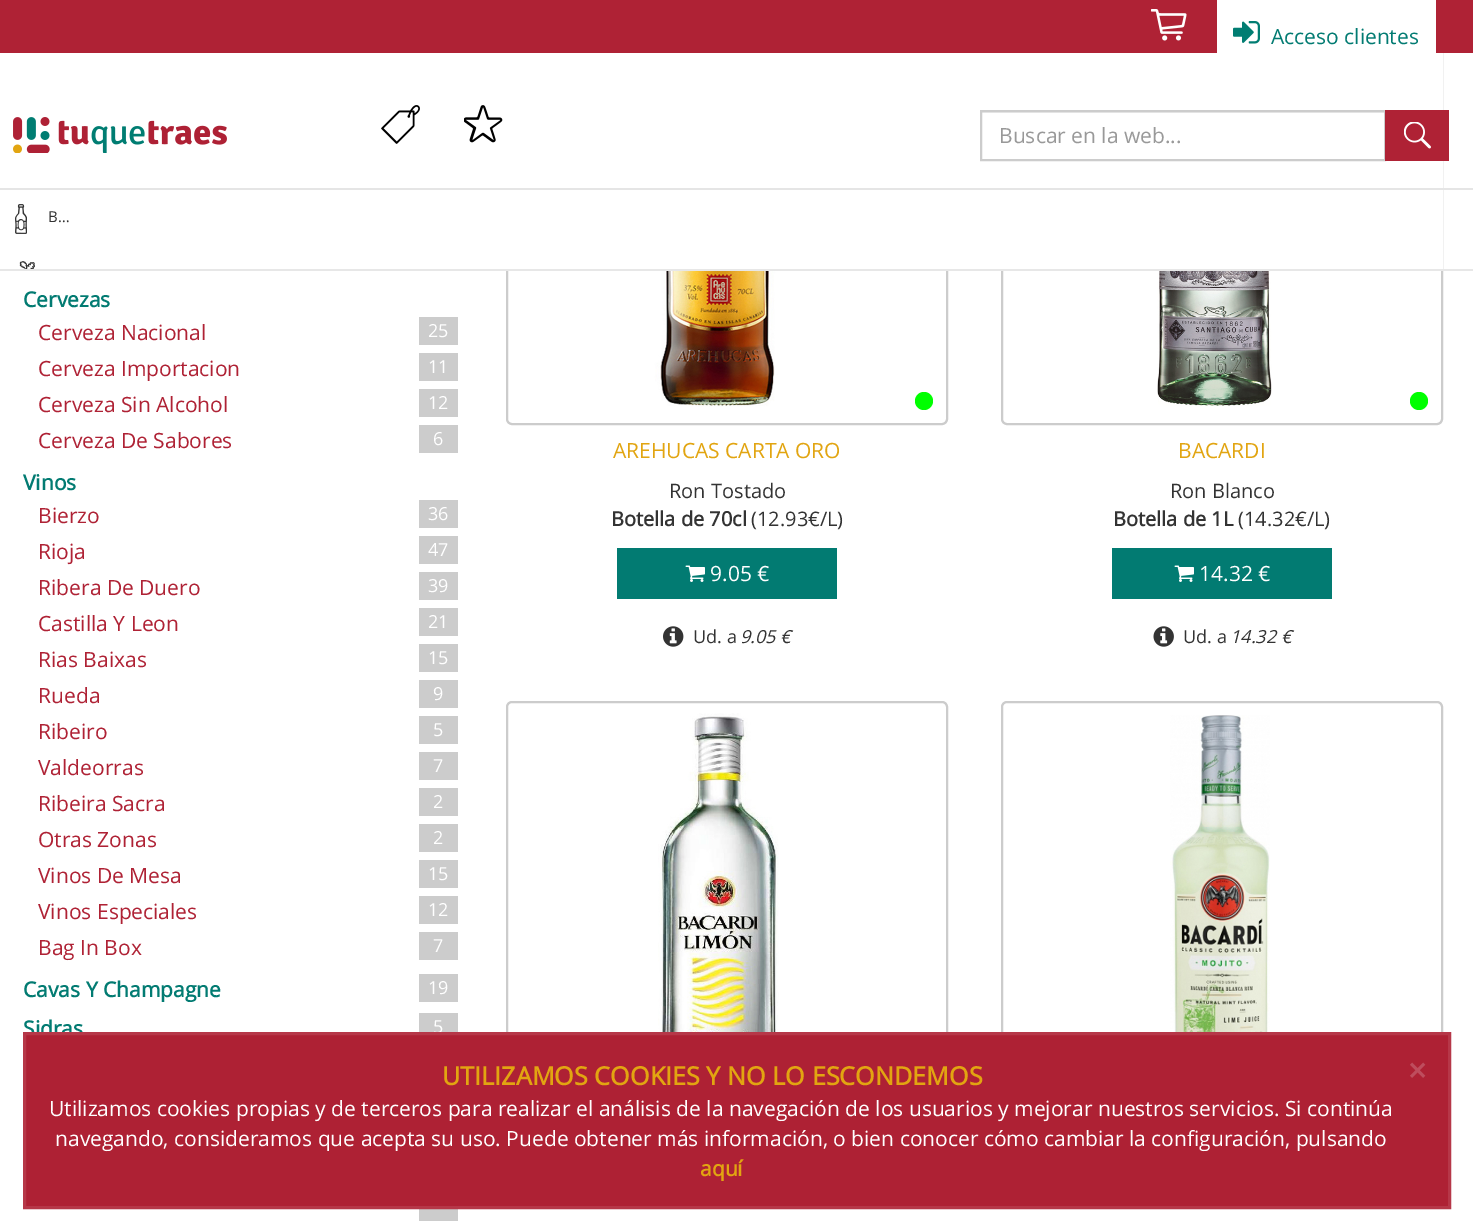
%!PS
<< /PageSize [1473 1231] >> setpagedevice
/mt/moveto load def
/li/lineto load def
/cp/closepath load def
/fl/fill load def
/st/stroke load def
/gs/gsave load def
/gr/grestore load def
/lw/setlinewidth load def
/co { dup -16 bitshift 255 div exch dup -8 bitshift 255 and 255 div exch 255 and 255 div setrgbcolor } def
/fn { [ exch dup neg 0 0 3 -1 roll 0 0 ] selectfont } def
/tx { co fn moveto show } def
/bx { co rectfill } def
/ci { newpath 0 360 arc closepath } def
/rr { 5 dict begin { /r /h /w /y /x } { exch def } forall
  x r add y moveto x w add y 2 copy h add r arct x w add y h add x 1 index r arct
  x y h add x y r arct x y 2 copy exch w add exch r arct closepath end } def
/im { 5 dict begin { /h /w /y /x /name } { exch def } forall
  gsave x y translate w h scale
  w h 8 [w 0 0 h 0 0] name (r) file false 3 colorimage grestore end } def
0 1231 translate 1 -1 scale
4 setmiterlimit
0 0 1473 1231 16#FFFFFF bx
16#CCCCCC co
2 lw
507 -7 440 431 5 rr st
1002 -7 440 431 5 rr st
0 0 1473 53 16#AF2235 bx
(media/1.raw) 1151 9 36 32 im
1217 0 219 53 16#FFFFFF bx
(media/2.raw) 1233 21 27 23 im
506 53 937 216 16#FFFFFF bx
0 269 1473 2 16#E7E7E7 bx
(media/3.raw) 13 117 214 36 im
981 112 404 1 16#ECECEC bx
16#CCCCCC co
981 111 404 49 rectstroke
1385 110 64 51 16#AF2235 bx
(media/4.raw) 1404 122 27 27 im
(media/5.raw) 381 105 39 39 im
(media/6.raw) 464 105 39 38 im
(media/7.raw) 15 204 12 30 im
(media/8.raw) 19 261 16 8 im
0 188 1473 2 16#E5E5E5 bx
419 317 39 28 16#CCCCCC bx
419 353 39 28 16#CCCCCC bx
419 389 39 28 16#CCCCCC bx
419 425 39 28 16#CCCCCC bx
419 500 39 28 16#CCCCCC bx
419 536 39 28 16#CCCCCC bx
419 572 39 28 16#CCCCCC bx
419 608 39 28 16#CCCCCC bx
419 644 39 28 16#CCCCCC bx
419 680 39 28 16#CCCCCC bx
419 716 39 28 16#CCCCCC bx
419 752 39 28 16#CCCCCC bx
419 788 39 28 16#CCCCCC bx
419 824 39 28 16#CCCCCC bx
419 860 39 28 16#CCCCCC bx
419 896 39 28 16#CCCCCC bx
419 932 39 28 16#CCCCCC bx
419 974 39 28 16#CCCCCC bx
419 1013 39 19 16#CCCCCC bx
419 1209 39 12 16#CCCCCC bx
(media/9.raw) 586 271 258 136 im
16#00FF00 co
924 401 9 ci fl
617 548 220 51 16#027B72 bx
(media/10.raw) 685 565 20 17 im
(media/11.raw) 663 626 21 21 im
(media/12.raw) 1157 271 115 135 im
16#00FF00 co
1419 401 9 ci fl
1112 548 220 51 16#027B72 bx
(media/10.raw) 1174 565 20 17 im
(media/13.raw) 1153 626 21 21 im
16#CCCCCC co
507 702 440 440 5 rr st
(media/14.raw) 658 713 121 319 im
1002 702 440 440 5 rr st
(media/15.raw) 1170 715 100 317 im
(Acceso clientes) 1271 44 /OpenSans-Regular 21 16#027B72 tx
(Buscar en la web...) 999 143 /OpenSans-Regular 21 16#999999 tx
(B…) 48 222 /OpenSans-Regular 15 16#333333 tx
(Cervezas) 23 307 /OpenSans-Bold 21 16#027B72 tx
(Cerveza Nacional) 38 340 /OpenSans-Regular 21 16#AF2235 tx
(25) 428 337 /OpenSans-Regular 18 16#FFFFFF tx
(Cerveza Importacion) 38 376 /OpenSans-Regular 21 16#AF2235 tx
(11) 428 373 /OpenSans-Regular 18 16#FFFFFF tx
(Cerveza Sin Alcohol) 38 412 /OpenSans-Regular 21 16#AF2235 tx
(12) 428 409 /OpenSans-Regular 18 16#FFFFFF tx
(Cerveza De Sabores) 38 448 /OpenSans-Regular 21 16#AF2235 tx
(6) 433 445 /OpenSans-Regular 18 16#FFFFFF tx
(Vinos) 23 490 /OpenSans-Bold 21 16#027B72 tx
(Bierzo) 38 523 /OpenSans-Regular 21 16#AF2235 tx
(36) 428 520 /OpenSans-Regular 18 16#FFFFFF tx
(Rioja) 38 559 /OpenSans-Regular 21 16#AF2235 tx
(47) 428 556 /OpenSans-Regular 18 16#FFFFFF tx
(Ribera De Duero) 38 595 /OpenSans-Regular 21 16#AF2235 tx
(39) 428 592 /OpenSans-Regular 18 16#FFFFFF tx
(Castilla Y Leon) 38 631 /OpenSans-Regular 21 16#AF2235 tx
(21) 428 628 /OpenSans-Regular 18 16#FFFFFF tx
(Rias Baixas) 38 667 /OpenSans-Regular 21 16#AF2235 tx
(15) 428 664 /OpenSans-Regular 18 16#FFFFFF tx
(Rueda) 38 703 /OpenSans-Regular 21 16#AF2235 tx
(9) 433 700 /OpenSans-Regular 18 16#FFFFFF tx
(Ribeiro) 38 739 /OpenSans-Regular 21 16#AF2235 tx
(5) 433 736 /OpenSans-Regular 18 16#FFFFFF tx
(Valdeorras) 38 775 /OpenSans-Regular 21 16#AF2235 tx
(7) 433 772 /OpenSans-Regular 18 16#FFFFFF tx
(Ribeira Sacra) 38 811 /OpenSans-Regular 21 16#AF2235 tx
(2) 433 808 /OpenSans-Regular 18 16#FFFFFF tx
(Otras Zonas) 38 847 /OpenSans-Regular 21 16#AF2235 tx
(2) 433 844 /OpenSans-Regular 18 16#FFFFFF tx
(Vinos De Mesa) 38 883 /OpenSans-Regular 21 16#AF2235 tx
(15) 428 880 /OpenSans-Regular 18 16#FFFFFF tx
(Vinos Especiales) 38 919 /OpenSans-Regular 21 16#AF2235 tx
(12) 428 916 /OpenSans-Regular 18 16#FFFFFF tx
(Bag In Box) 38 955 /OpenSans-Regular 21 16#AF2235 tx
(7) 433 952 /OpenSans-Regular 18 16#FFFFFF tx
(Cavas Y Champagne) 23 997 /OpenSans-Bold 21 16#027B72 tx
(19) 428 994 /OpenSans-Regular 18 16#FFFFFF tx
(Sidras) 23 1036 /OpenSans-Bold 21 16#027B72 tx
(5) 433 1033 /OpenSans-Regular 18 16#FFFFFF tx
(AREHUCAS CARTA ORO) 613 458 /OpenSans-Regular 21 16#E2A511 tx
(Ron Tostado) 669 498 /OpenSans-Regular 20 16#333333 tx
(Botella de 70cl) 611 526 /OpenSans-Bold 20 16#333333 tx
(\(12.93€/L\)) 751 526 /OpenSans-Regular 20 16#333333 tx
(9.05 €) 710 581 /OpenSans-Regular 21 16#FFFFFF tx
(Ud. a) 693 643 /OpenSans-Regular 18 16#333333 tx
(9.05 €) 740 643 /OpenSans-Italic 18 16#333333 tx
(BACARDI) 1178 458 /OpenSans-Regular 21 16#E2A511 tx
(Ron Blanco) 1170 498 /OpenSans-Regular 20 16#333333 tx
(Botella de 1L) 1113 526 /OpenSans-Bold 20 16#333333 tx
(\(14.32€/L\)) 1238 526 /OpenSans-Regular 20 16#333333 tx
(14.32 €) 1199 581 /OpenSans-Regular 21 16#FFFFFF tx
(Ud. a) 1183 643 /OpenSans-Regular 18 16#333333 tx
(14.32 €) 1230 643 /OpenSans-Italic 18 16#333333 tx
16#AE2134 co
24.5 1033.5 mt 1449.5 1033.5 li 1449.5 1207.5 li 24.5 1207.5 li cp gs fl gr
16#B63748 co
3 lw
st
(UTILIZAMOS COOKIES Y NO LO ESCONDEMOS) 442 1085 /OpenSans-Bold 25.2 16#E2A511 tx
(×) 1408 1082 /OpenSans-Bold 32 16#BE4D5D tx
(Utilizamos cookies propias y de terceros para realizar el análisis de la navegación de los usuarios y mejorar nuestros servicios. Si continúa) 49 1116 /OpenSans-Regular 21 16#FFFFFF tx
(navegando, consideramos que acepta su uso. Puede obtener más información, o bien conocer cómo cambiar la configuración, pulsando) 55 1146 /OpenSans-Regular 21 16#FFFFFF tx
(aquí) 700 1176 /OpenSans-Bold 21 16#E2A511 tx
showpage
